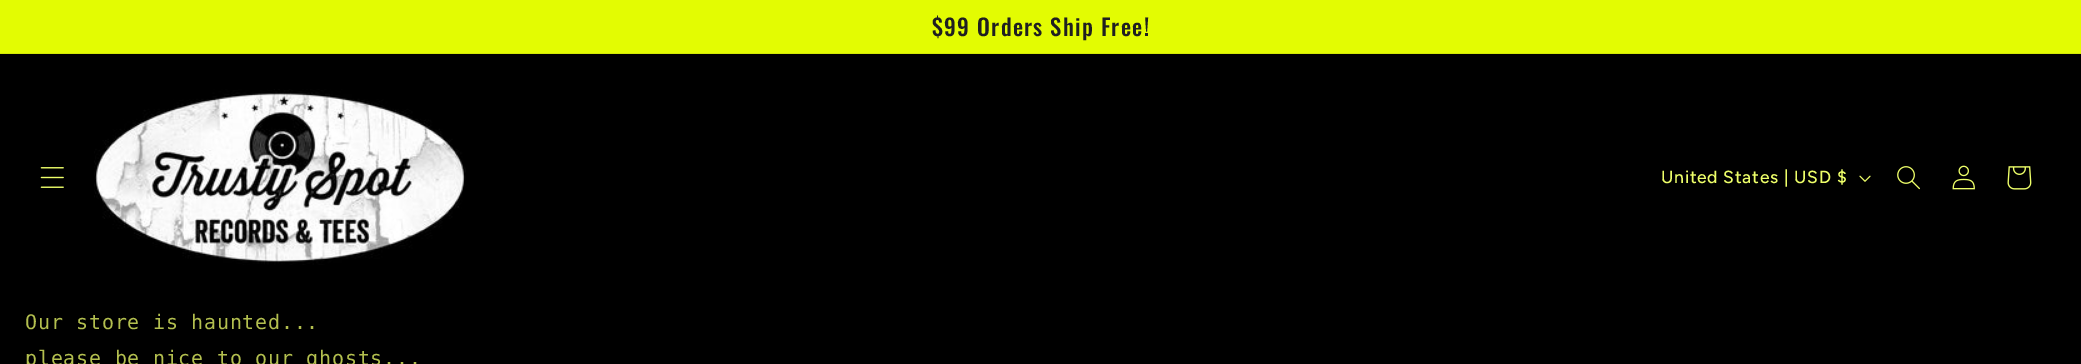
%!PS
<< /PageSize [2081 364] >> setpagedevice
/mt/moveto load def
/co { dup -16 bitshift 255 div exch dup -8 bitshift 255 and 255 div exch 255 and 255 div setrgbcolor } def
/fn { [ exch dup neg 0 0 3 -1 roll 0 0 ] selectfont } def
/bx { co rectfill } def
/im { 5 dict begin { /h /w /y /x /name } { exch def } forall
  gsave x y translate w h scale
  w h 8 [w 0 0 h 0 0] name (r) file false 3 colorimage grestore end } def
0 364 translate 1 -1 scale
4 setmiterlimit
0 0 2081 364 16#000000 bx
0 0 2081 53 16#E3FC02 bx
0 53 2081 1 16#D3EA04 bx
(media/1.raw) 40 167 24 21 im
(media/2.raw) 94 89 372 176 im
(media/3.raw) 1859 175 12 7 im
(media/4.raw) 1897 166 23 24 im
(media/5.raw) 1952 165 23 25 im
(media/6.raw) 2007 166 25 24 im
/Oswald-Medium 22.75 fn
16#1F1F21 co
932 36 mt 1.25 0 ($99 Orders Ship Free!) ashow
/Figtree-Medium 17.5 fn
16#EEFF69 co
1661 183 mt .75 0 (United States | USD $) ashow
/DejaVuSansMono-Regular 20 fn
16#B3BF4F co
25 329 mt .75 0 (Our store is haunted...) ashow
25 365 mt .75 0 (please be nice to our ghosts...) ashow
showpage
